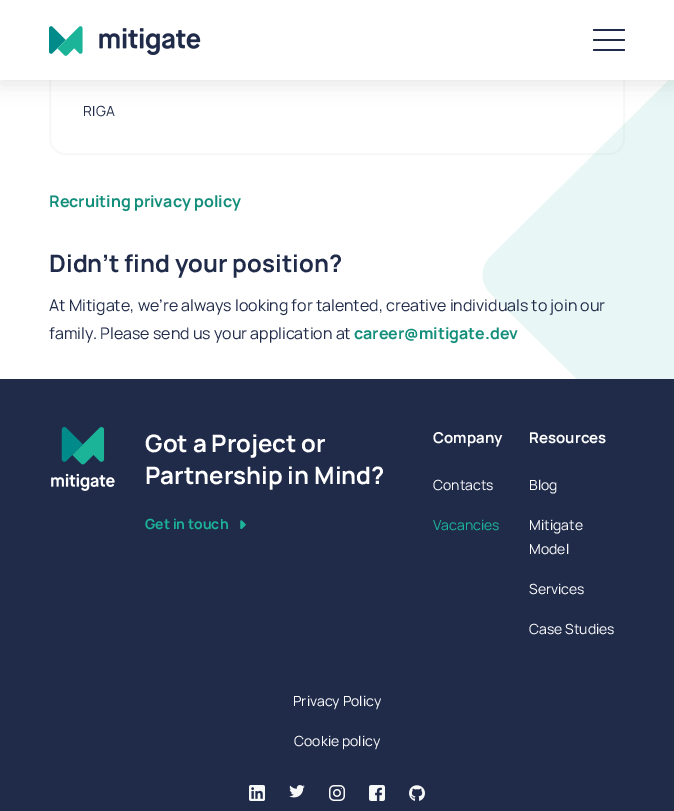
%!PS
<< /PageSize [674 811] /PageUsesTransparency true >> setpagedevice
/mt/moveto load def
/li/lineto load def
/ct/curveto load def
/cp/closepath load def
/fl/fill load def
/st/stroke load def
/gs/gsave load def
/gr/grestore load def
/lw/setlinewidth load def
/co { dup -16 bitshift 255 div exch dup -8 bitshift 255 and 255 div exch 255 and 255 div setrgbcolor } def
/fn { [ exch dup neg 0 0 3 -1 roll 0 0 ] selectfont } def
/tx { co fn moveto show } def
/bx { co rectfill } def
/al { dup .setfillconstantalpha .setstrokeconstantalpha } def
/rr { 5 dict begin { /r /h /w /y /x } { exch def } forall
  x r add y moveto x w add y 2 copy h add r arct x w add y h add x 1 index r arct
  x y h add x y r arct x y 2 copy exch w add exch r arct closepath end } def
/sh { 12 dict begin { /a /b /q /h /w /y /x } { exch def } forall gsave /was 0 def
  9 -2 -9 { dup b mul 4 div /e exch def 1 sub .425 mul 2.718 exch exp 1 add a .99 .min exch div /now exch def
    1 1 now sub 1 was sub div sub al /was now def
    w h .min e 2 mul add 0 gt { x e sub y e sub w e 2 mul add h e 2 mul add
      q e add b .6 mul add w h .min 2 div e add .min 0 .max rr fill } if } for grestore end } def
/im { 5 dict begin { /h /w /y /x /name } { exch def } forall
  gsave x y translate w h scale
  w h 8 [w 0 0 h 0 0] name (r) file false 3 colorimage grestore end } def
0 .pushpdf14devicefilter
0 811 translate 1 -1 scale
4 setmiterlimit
0 0 674 811 16#FFFFFF bx
16#F7F8F8 co
2 lw
50 -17 574 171 15 rr st
gs
482 66 192 313 rectclip
0.1 al
16#1CB499 co
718 458 mt 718 480 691 491 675 476 ct 490 293 li 480 283 480 267 490 257 ct 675 74 li 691 58 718 69 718 92 ct cp fl
gr
16#000000 co
0 4 674 80 0 10 .1 sh
0 0 674 80 16#FFFFFF bx
(media/1.raw) 49 26 152 30 im
16#202B4A co
593 29 32 2 1 rr fl
593 39 32 2 1 rr fl
593 49 32 2 1 rr fl
0 379 674 432 16#202B4A bx
(media/2.raw) 51 427 64 64 im
(media/3.raw) 240 520 6 9 im
(media/4.raw) 249 785 16 16 im
(media/5.raw) 289 785 16 13 im
(media/6.raw) 329 785 16 16 im
(media/7.raw) 369 785 16 16 im
(media/8.raw) 409 785 16 16 im
/Manrope-Regular 14 fn
83 116 mt .5 0 (RIGA) ashow
(Recruiting privacy policy) 49 207 /Manrope-Bold 16 16#138E7B tx
(Didn’t find your position?) 49 272 /Manrope-Bold 24 16#202B4A tx
(At Mitigate, we’re always looking for talented, creative individuals to join our) 49 311 /Manrope-Regular 16 16#202B4A tx
(family. Please send us your application at) 49 339 /Manrope-Regular 16 16#202B4A tx
(career@mitigate.dev) 354 339 /Manrope-Bold 16 16#138E7B tx
(Got a Project or) 145 452 /Manrope-Bold 24 16#FFFFFF tx
(Partnership in Mind?) 145 484 /Manrope-Bold 24 16#FFFFFF tx
(Get in touch) 145 529 /Manrope-Bold 14 16#1CB499 tx
(Company) 433 443 /Manrope-Bold 15 16#FFFFFF tx
(Contacts) 433 490 /Manrope-Regular 14 16#FFFFFF tx
(Vacancies) 433 530 /Manrope-Regular 14 16#1CB499 tx
(Resources) 529 443 /Manrope-Bold 15 16#FFFFFF tx
(Blog) 529 490 /Manrope-Regular 14 16#FFFFFF tx
(Mitigate) 529 530 /Manrope-Regular 14 16#FFFFFF tx
(Model) 529 554 /Manrope-Regular 14 16#FFFFFF tx
(Services) 529 594 /Manrope-Regular 14 16#FFFFFF tx
(Case Studies) 529 634 /Manrope-Regular 14 16#FFFFFF tx
(Privacy Policy) 293 706 /Manrope-Regular 14 16#FFFFFF tx
(Cookie policy) 294 746 /Manrope-Regular 14 16#FFFFFF tx
.poppdf14devicefilter showpage
